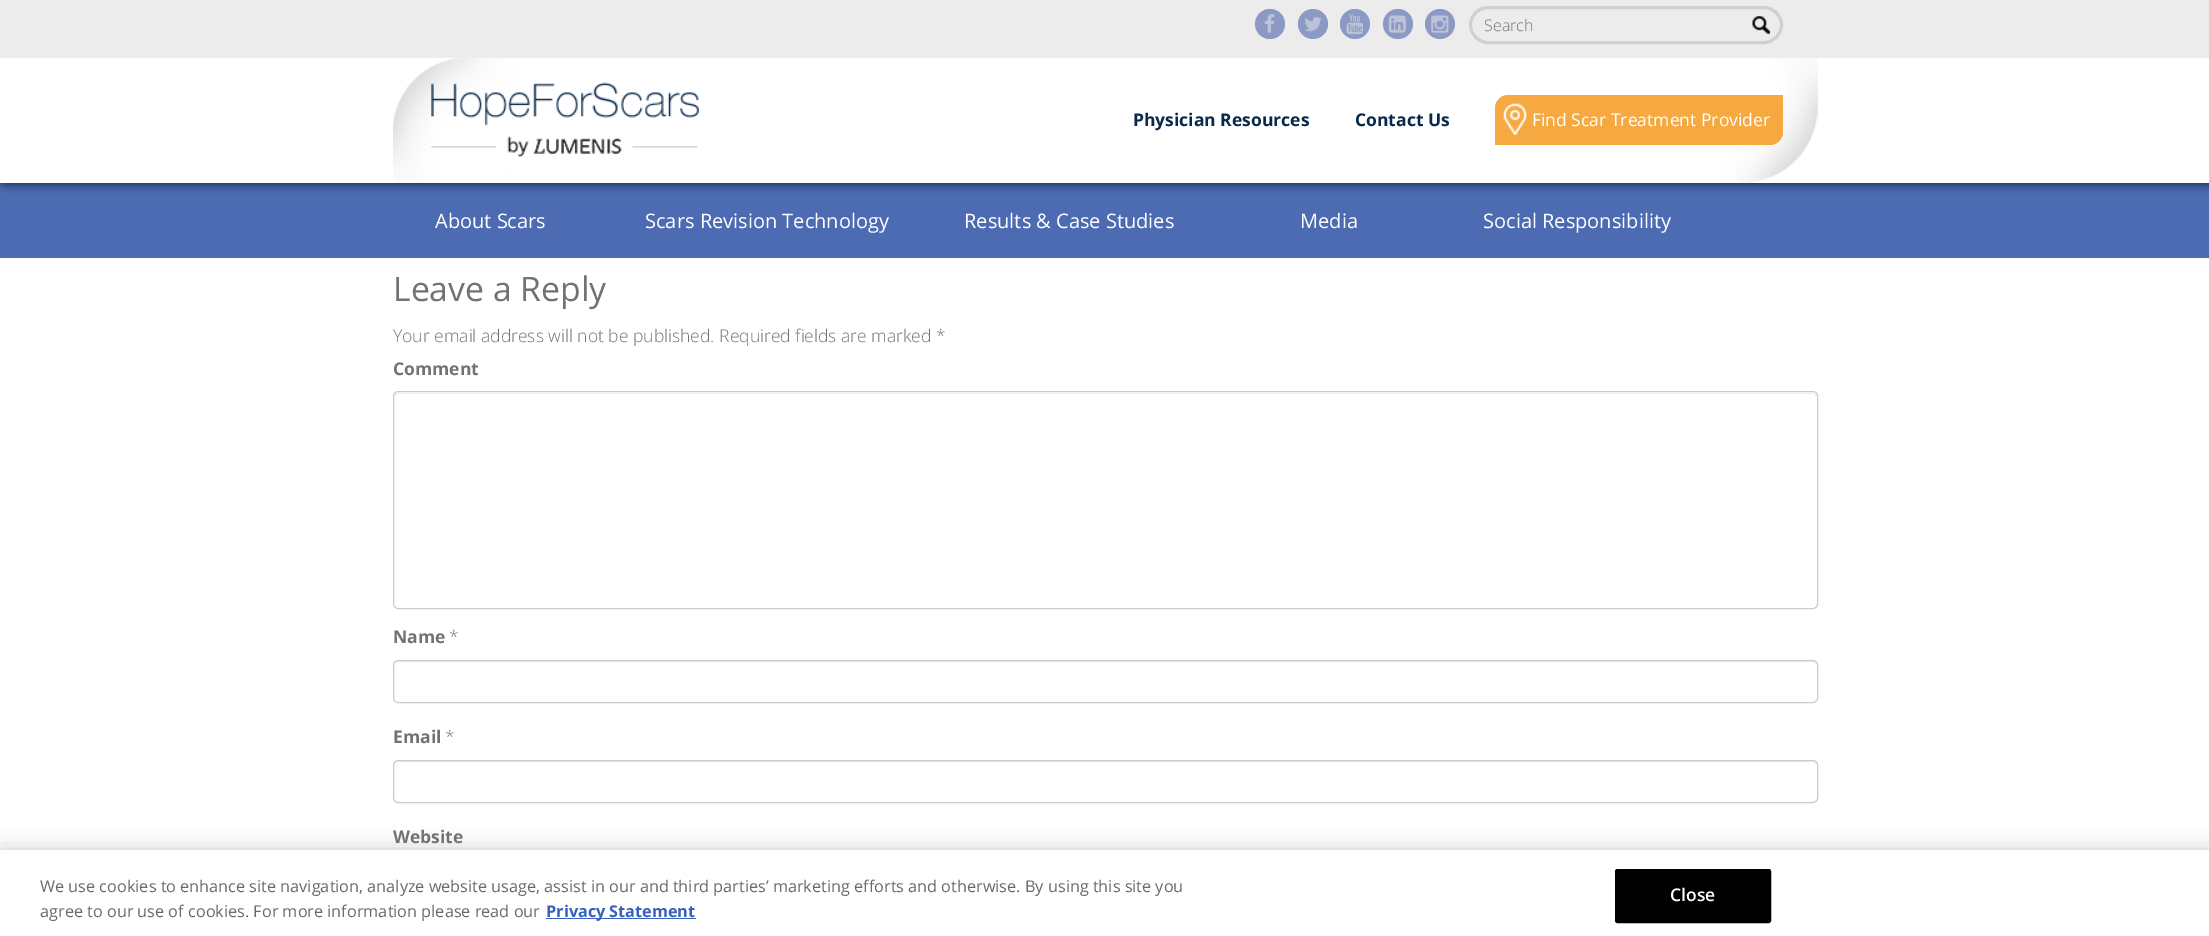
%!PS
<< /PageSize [2209 936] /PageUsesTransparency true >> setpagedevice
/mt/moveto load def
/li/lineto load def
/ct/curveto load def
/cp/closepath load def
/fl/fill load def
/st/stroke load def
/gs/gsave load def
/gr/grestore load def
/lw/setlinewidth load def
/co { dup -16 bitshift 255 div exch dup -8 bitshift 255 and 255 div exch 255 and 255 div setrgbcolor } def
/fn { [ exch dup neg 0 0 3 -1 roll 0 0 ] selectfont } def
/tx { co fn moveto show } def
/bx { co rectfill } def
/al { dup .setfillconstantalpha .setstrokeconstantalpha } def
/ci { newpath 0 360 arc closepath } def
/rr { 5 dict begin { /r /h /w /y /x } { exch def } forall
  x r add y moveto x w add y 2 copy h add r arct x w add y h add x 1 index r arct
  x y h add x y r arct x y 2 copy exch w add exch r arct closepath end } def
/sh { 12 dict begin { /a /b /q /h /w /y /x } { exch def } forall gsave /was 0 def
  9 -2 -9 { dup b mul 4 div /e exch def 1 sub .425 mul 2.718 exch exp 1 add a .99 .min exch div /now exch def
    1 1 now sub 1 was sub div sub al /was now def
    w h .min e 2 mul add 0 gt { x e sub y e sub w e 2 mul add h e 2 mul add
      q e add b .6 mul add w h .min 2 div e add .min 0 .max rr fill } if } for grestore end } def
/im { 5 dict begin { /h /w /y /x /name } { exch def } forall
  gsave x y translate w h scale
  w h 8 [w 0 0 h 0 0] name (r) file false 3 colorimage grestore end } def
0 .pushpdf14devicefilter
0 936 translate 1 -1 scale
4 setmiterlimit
0 0 2209 936 16#FFFFFF bx
0 0 2209 58 16#ECECEC bx
16#8C99C4 co
1270 24 15 ci fl
(media/1.raw) 1264 14 11 19 im
1313 24 15 ci fl
(media/2.raw) 1304 17 18 15 im
1355 24 15 ci fl
(media/3.raw) 1346 14 17 21 im
1398 24 15 ci fl
(media/4.raw) 1388 15 18 18 im
1440 24 15 ci fl
(media/5.raw) 1431 15 18 18 im
16#D0D0D0 co
3 lw
1470.5 7.5 311 35 17.5 rr st
(media/6.raw) 1752 16 18 18 im
(media/7.raw) 393 58 1425 125 im
(media/8.raw) 431 82 268 75 im
16#F7A941 co
1508 95 mt 1783 95 li 1783 132 li 1783 139 1777 145 1770 145 ct 1495 145 li 1495 108 li 1495 101 1501 95 1508 95 ct cp fl
(media/9.raw) 1503 103 24 32 im
(media/10.raw) 0 183 2209 75 im
16#ECECEC co
398 394 mt 1812 394 li 1815 394 1816 395 1816 398 ct 1816 397 li 1816 395 1814 393 1812 393 ct 398 393 li 396 393 394 395 394 397 ct 394 398 li 394 395 395 394 398 394 ct cp fl
16#CCCCCC co
1 lw
393.5 391.5 1424 217 4.5 rr st
16#ECECEC co
398 662 mt 1812 662 li 1815 662 1816 664 1816 666 ct 1816 665 li 1816 663 1814 661 1812 661 ct 398 661 li 396 661 394 663 394 665 ct 394 666 li 394 664 395 662 398 662 ct cp fl
16#CCCCCC co
393.5 660.5 1424 42 4.5 rr st
16#ECECEC co
398 762 mt 1812 762 li 1815 762 1816 764 1816 766 ct 1816 765 li 1816 763 1814 761 1812 761 ct 398 761 li 396 761 394 763 394 765 ct 394 766 li 394 764 395 762 398 762 ct cp fl
16#CCCCCC co
393.5 760.5 1424 42 4.5 rr st
16#000000 co
0 850 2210 86 0 11 .2 sh
0 850 2209 86 16#FFFFFF bx
546 918 150 1 16#3860BE bx
16#000000 co
1615.5 869.5 155 53 2 rr gs fl gr
st
(Search) 1484 31 /OpenSans-Light 16 16#727272 tx
(Physician Resources) 1133 126 /OpenSans-Bold 17.5 16#07294A tx
(Contact Us) 1355 126 /OpenSans-Bold 17.5 16#07294A tx
(Find Scar Treatment Provider) 1532 126 /OpenSans-Regular 17.5 16#FFFFFF tx
(About Scars) 435 228 /OpenSans-Regular 20 16#FFFFFF tx
(Scars Revision Technology) 645 228 /OpenSans-Regular 20 16#FFFFFF tx
(Results & Case Studies) 964 228 /OpenSans-Regular 20 16#FFFFFF tx
(Media) 1300 228 /OpenSans-Regular 20 16#FFFFFF tx
(Social Responsibility) 1483 228 /OpenSans-Regular 20 16#FFFFFF tx
(Leave a Reply) 393 301 /OpenSans-Regular 33.75 16#727272 tx
(Your email address will not be published. Required fields are marked *) 393 342 /OpenSans-Light 17.5 16#727272 tx
(Comment) 393 375 /OpenSans-Bold 17.5 16#727272 tx
(Name) 393 643 /OpenSans-Bold 17.5 16#727272 tx
(*) 449 643 /OpenSans-Light 17.5 16#727272 tx
(Email) 393 743 /OpenSans-Bold 17.5 16#727272 tx
(*) 445 743 /OpenSans-Light 17.5 16#727272 tx
(Website) 393 843 /OpenSans-Bold 17.5 16#727272 tx
(We use cookies to enhance site navigation, analyze website usage, assist in our and third parties’ marketing efforts and otherwise. By using this site you) 40 892 /OpenSans-Regular 16.25 16#696969 tx
(agree to our use of cookies. For more information please read our) 40 917 /OpenSans-Regular 16.25 16#696969 tx
(Privacy Statement) 546 917 /OpenSans-Bold 16.25 16#3860BE tx
(Close) 1670 901 /OpenSans-SemiBold 17.5 16#FFFFFF tx
.poppdf14devicefilter showpage
